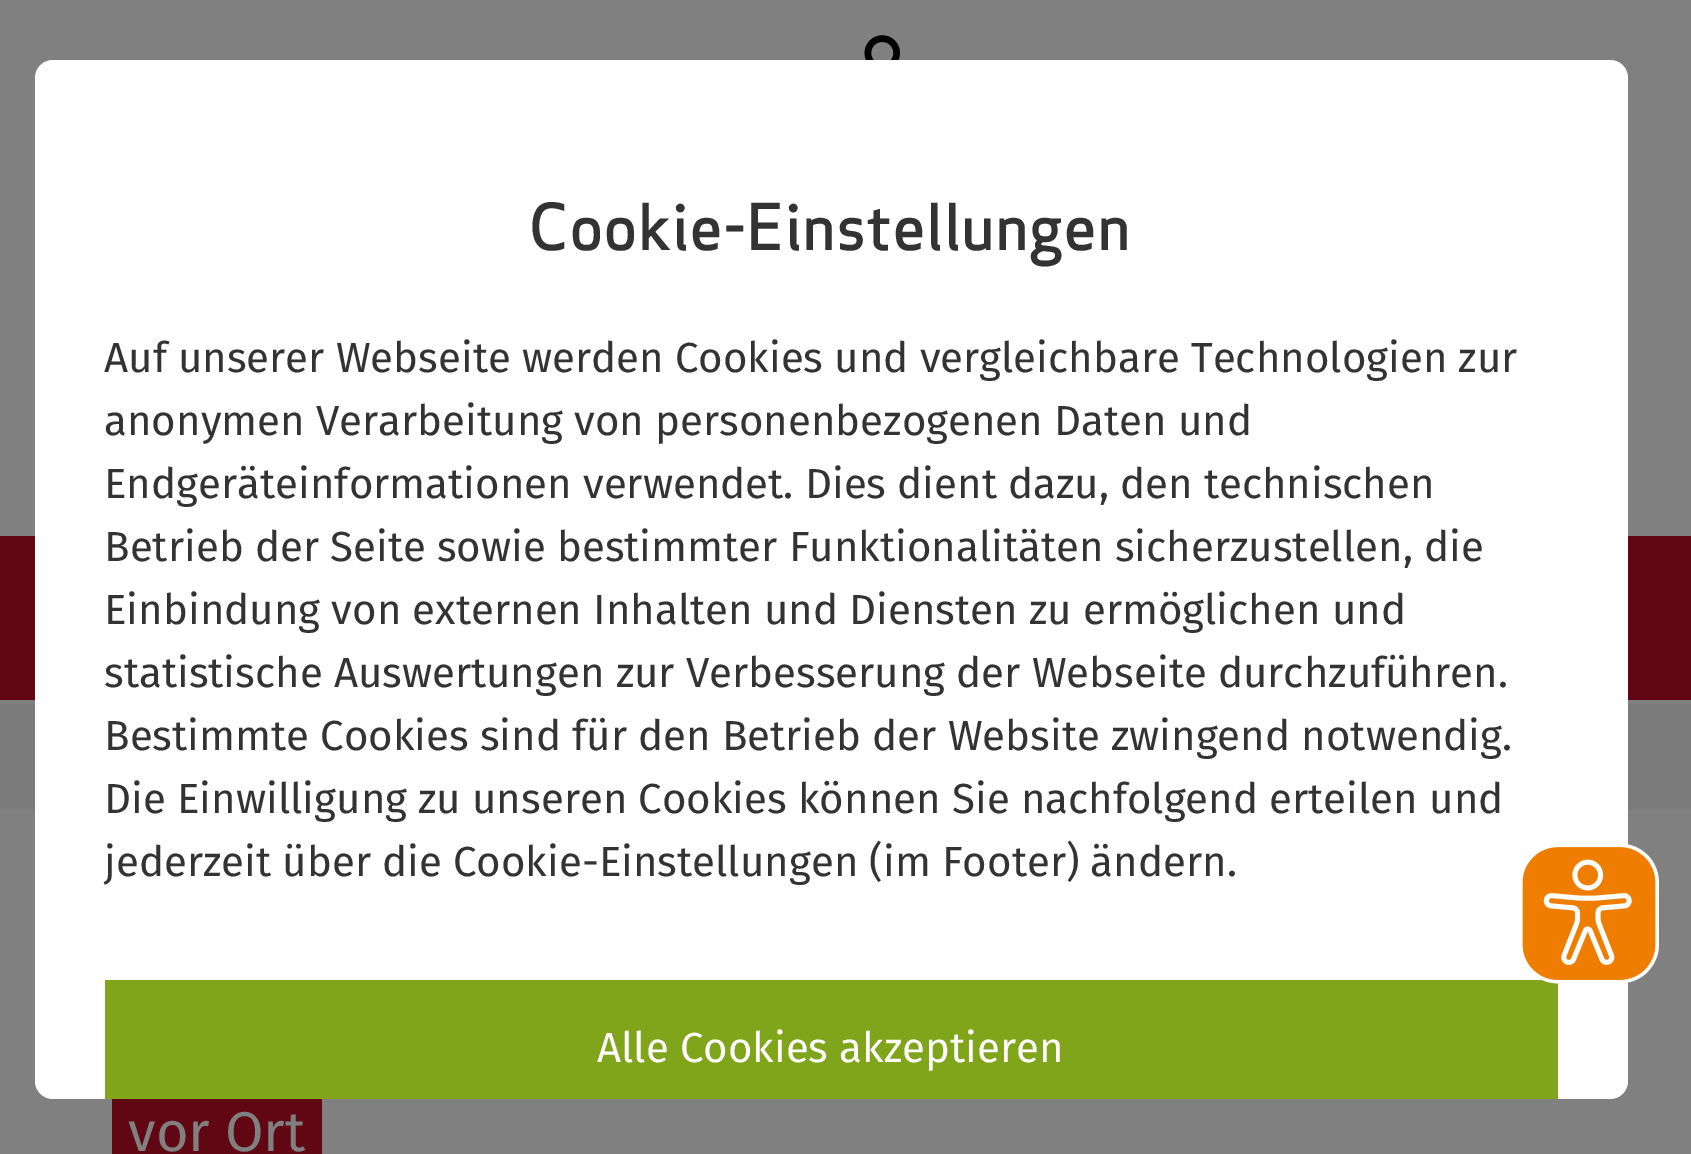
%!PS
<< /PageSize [1691 1154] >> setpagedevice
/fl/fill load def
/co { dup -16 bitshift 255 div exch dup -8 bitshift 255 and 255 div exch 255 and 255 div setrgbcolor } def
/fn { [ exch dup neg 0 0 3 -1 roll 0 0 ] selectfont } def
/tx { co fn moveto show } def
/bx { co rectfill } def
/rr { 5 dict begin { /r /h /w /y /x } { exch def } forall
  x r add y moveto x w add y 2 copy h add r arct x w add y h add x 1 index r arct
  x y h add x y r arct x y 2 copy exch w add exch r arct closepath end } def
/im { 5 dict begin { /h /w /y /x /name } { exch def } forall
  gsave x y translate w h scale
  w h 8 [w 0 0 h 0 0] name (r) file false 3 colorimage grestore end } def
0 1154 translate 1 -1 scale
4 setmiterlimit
0 0 1691 1154 16#808080 bx
(media/1.raw) 864 35 36 25 im
0 536 1691 164 16#610613 bx
0 704 1691 105 16#7B7B7B bx
16#FFFFFF co
35 60 1593 1039 18 rr fl
105 980 1453 119 16#80A51B bx
(media/2.raw) 1522 844 137 140 im
112 1099 210 55 16#610613 bx
(Cookie-Einstellungen) 528 250 /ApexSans-Medium 63 16#333333 tx
(Auf unserer Webseite werden Cookies und vergleichbare Technologien zur) 104 372 /FiraSans-Regular 42 16#333333 tx
(anonymen Verarbeitung von personenbezogenen Daten und) 104 435 /FiraSans-Regular 42 16#333333 tx
(Endgeräteinformationen verwendet. Dies dient dazu, den technischen) 104 498 /FiraSans-Regular 42 16#333333 tx
(Betrieb der Seite sowie bestimmter Funktionalitäten sicherzustellen, die) 104 561 /FiraSans-Regular 42 16#333333 tx
(Einbindung von externen Inhalten und Diensten zu ermöglichen und) 104 624 /FiraSans-Regular 42 16#333333 tx
(statistische Auswertungen zur Verbesserung der Webseite durchzuführen.) 104 687 /FiraSans-Regular 42 16#333333 tx
(Bestimmte Cookies sind für den Betrieb der Website zwingend notwendig.) 104 750 /FiraSans-Regular 42 16#333333 tx
(Die Einwilligung zu unseren Cookies können Sie nachfolgend erteilen und) 104 813 /FiraSans-Regular 42 16#333333 tx
(jederzeit über die Cookie-Einstellungen \(im Footer\) ändern.) 104 876 /FiraSans-Regular 42 16#333333 tx
(Alle Cookies akzeptieren) 597 1062 /FiraSans-Regular 42 16#FFFFFF tx
(vor Ort) 128 1151 /FiraSans-Regular 56 16#808080 tx
showpage
